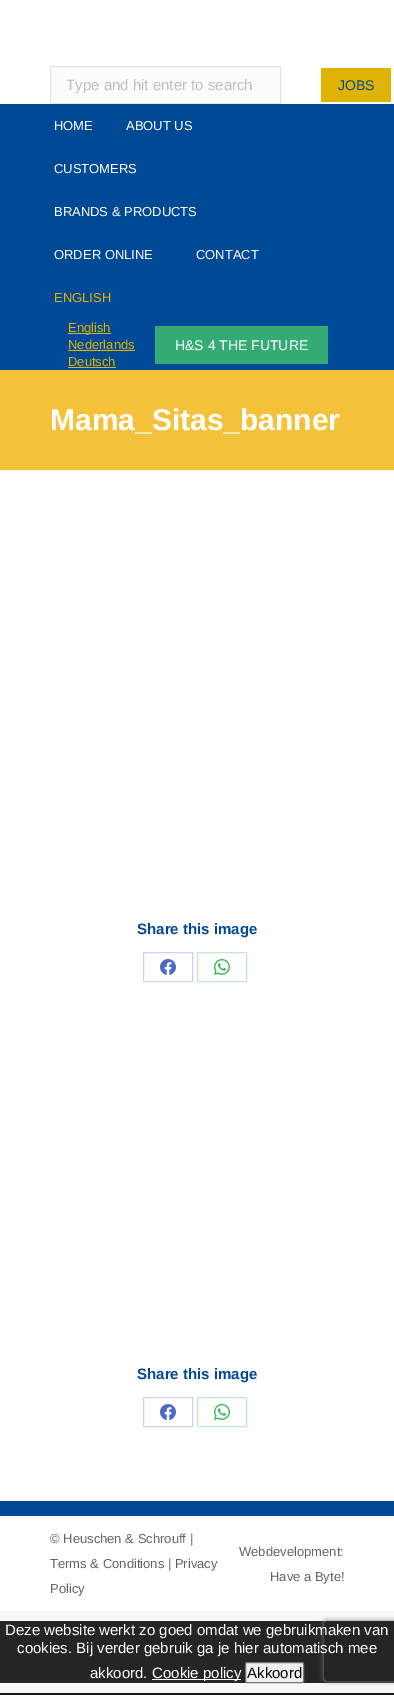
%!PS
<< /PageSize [394 1695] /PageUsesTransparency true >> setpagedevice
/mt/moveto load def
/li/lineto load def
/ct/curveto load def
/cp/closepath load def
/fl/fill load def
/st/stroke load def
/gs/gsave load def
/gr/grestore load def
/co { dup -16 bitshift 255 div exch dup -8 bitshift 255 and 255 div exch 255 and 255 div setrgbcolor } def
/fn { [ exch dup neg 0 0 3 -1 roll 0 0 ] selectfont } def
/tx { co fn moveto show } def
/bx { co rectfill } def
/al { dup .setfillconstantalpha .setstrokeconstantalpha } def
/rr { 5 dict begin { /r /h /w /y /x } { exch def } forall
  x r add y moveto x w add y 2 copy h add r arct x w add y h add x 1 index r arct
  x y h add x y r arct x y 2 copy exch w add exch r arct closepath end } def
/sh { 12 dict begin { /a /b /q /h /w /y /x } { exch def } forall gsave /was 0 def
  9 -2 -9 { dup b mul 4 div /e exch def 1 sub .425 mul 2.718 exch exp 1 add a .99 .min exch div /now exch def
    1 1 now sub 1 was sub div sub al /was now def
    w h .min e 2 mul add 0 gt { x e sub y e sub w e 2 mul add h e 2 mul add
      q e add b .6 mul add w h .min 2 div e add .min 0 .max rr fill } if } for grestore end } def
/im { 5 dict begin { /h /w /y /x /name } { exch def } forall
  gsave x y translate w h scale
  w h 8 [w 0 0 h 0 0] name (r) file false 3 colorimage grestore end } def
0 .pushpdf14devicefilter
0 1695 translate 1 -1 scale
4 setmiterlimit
0 0 394 1695 16#F8F8F9 bx
0 0 394 1501 16#FFFFFF bx
16#FCFCFC co
50.5 66.5 mt 280.5 66.5 li 280.5 103.5 li 50.5 103.5 li cp gs fl gr
16#E4E5E7 co
st
321 68 70 34 16#E0B300 bx
0 104 394 266 16#004996 bx
68 333 43 1 16#E0B300 bx
68 350 67 1 16#E0B300 bx
68 367 48 1 16#E0B300 bx
155 326 173 38 16#34AA75 bx
0 370 394 100 16#F4C238 bx
16#C9D2EE co
143.5 952.5 49 29 rectstroke
(media/1.raw) 160 959 16 16 im
16#C3E9CA co
197.5 952.5 49 29 rectstroke
(media/2.raw) 214 959 16 16 im
16#C9D2EE co
143.5 1397.5 49 29 rectstroke
(media/1.raw) 160 1404 16 16 im
16#C3E9CA co
197.5 1397.5 49 29 rectstroke
(media/2.raw) 214 1404 16 16 im
0 1501 394 15 16#004996 bx
0 1516 394 95 16#FFFFFF bx
0 1621 394 62 16#252525 bx
gs
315 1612 mt 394 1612 li 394 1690 li 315 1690 li cp 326 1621 mt 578 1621 li 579 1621 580 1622 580 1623 ct 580 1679 li 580 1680 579 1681 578 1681 ct 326 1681 li 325 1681 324 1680 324 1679 ct 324 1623 li 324 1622 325 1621 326 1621 ct cp eoclip newpath
16#808080 co
324 1621 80 60 2 2.5 1 sh
gr
152 1679 89 1 16#FFFFFF bx
16#EFEFEF co
245.5 1662.5 58 20 1.5 rr gs fl gr
16#767676 co
st
0 1693 394 2 16#191919 bx
(Type and hit enter to search) 66 90 /LiberationSans-Regular 15 16#BABDC1 tx
(JOBS) 338 90 /LiberationSans-Regular 14 16#004996 tx
(HOME) 54 130 /LiberationSans-Regular 13 16#FFFFFF tx
(ABOUT US) 126 130 /LiberationSans-Regular 13 16#FFFFFF tx
(CUSTOMERS) 54 173 /LiberationSans-Regular 13 16#FFFFFF tx
(BRANDS & PRODUCTS) 54 216 /LiberationSans-Regular 13 16#FFFFFF tx
(ORDER ONLINE) 54 259 /LiberationSans-Regular 13 16#FFFFFF tx
(CONTACT) 196 259 /LiberationSans-Regular 13 16#FFFFFF tx
(ENGLISH) 54 302 /LiberationSans-Regular 13 16#E0B300 tx
(English) 68 332 /LiberationSans-Regular 13 16#E0B300 tx
(Nederlands) 68 349 /LiberationSans-Regular 13 16#E0B300 tx
(Deutsch) 68 366 /LiberationSans-Regular 13 16#E0B300 tx
(H&S 4 THE FUTURE) 175 350 /LiberationSans-Regular 14 16#FFFFFF tx
(Mama_Sitas_banner) 50 430 /LiberationSans-Bold 30 16#FFFFFF tx
(Share this image) 137 934 /LiberationSans-Bold 15 16#004996 tx
(Share this image) 137 1379 /LiberationSans-Bold 15 16#004996 tx
(© Heuschen & Schrouff |) 50 1543 /LiberationSans-Regular 13 16#636363 tx
(Terms & Conditions | Privacy) 50 1568 /LiberationSans-Regular 13 16#636363 tx
(Policy) 50 1593 /LiberationSans-Regular 13 16#636363 tx
(Webdevelopment:) 239 1556 /LiberationSans-Regular 13 16#636363 tx
(Have a Byte!) 270 1581 /LiberationSans-Regular 13 16#636363 tx
(Deze website werkt zo goed omdat we gebruikmaken van) 5 1635 /LiberationSans-Regular 15 16#FFFFFF tx
(cookies. Bij verder gebruik ga je hier automatisch mee) 17 1653 /LiberationSans-Regular 15 16#FFFFFF tx
(akkoord.) 90 1678 /LiberationSans-Regular 15 16#FFFFFF tx
(Cookie policy) 152 1678 /LiberationSans-Regular 15 16#FFFFFF tx
(Akkoord) 247 1678 /LiberationSans-Regular 15 16#000000 tx
.poppdf14devicefilter showpage
